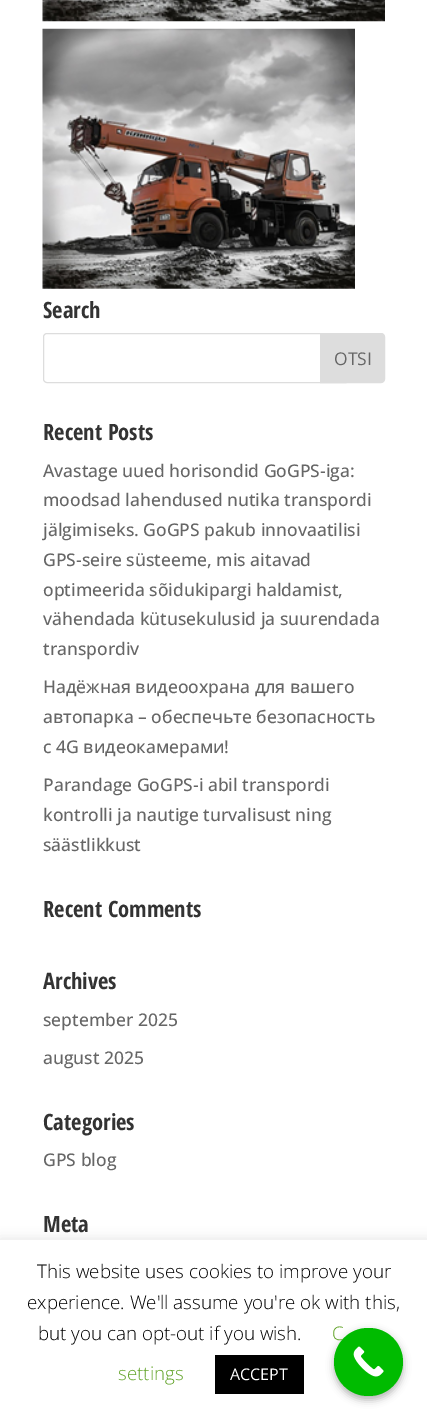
%!PS
<< /PageSize [427 1415] /PageUsesTransparency true >> setpagedevice
/mt/moveto load def
/li/lineto load def
/ct/curveto load def
/cp/closepath load def
/fl/fill load def
/st/stroke load def
/gs/gsave load def
/gr/grestore load def
/co { dup -16 bitshift 255 div exch dup -8 bitshift 255 and 255 div exch 255 and 255 div setrgbcolor } def
/fn { [ exch dup neg 0 0 3 -1 roll 0 0 ] selectfont } def
/tx { co fn moveto show } def
/bx { co rectfill } def
/al { dup .setfillconstantalpha .setstrokeconstantalpha } def
/rr { 5 dict begin { /r /h /w /y /x } { exch def } forall
  x r add y moveto x w add y 2 copy h add r arct x w add y h add x 1 index r arct
  x y h add x y r arct x y 2 copy exch w add exch r arct closepath end } def
/sh { 12 dict begin { /a /b /q /h /w /y /x } { exch def } forall gsave /was 0 def
  9 -2 -9 { dup b mul 4 div /e exch def 1 sub .425 mul 2.718 exch exp 1 add a .99 .min exch div /now exch def
    1 1 now sub 1 was sub div sub al /was now def
    w h .min e 2 mul add 0 gt { x e sub y e sub w e 2 mul add h e 2 mul add
      q e add b .6 mul add w h .min 2 div e add .min 0 .max rr fill } if } for grestore end } def
/im { 5 dict begin { /h /w /y /x /name } { exch def } forall
  gsave x y translate w h scale
  w h 8 [w 0 0 h 0 0] name (r) file false 3 colorimage grestore end } def
0 .pushpdf14devicefilter
0 1415 translate 1 -1 scale
4 setmiterlimit
0 0 427 1415 16#FFFFFF bx
(media/1.raw) 42 0 343 22 im
(media/2.raw) 42 28 313 261 im
16#DDDDDD co
43.5 333.5 306 49 3.5 rr st
320.5 333.5 mt 381 333.5 li 383 333.5 384.5 335 384.5 337 ct 384.5 379 li 384.5 381 383 382.5 381 382.5 ct 320.5 382.5 li cp gs fl gr
st
16#ACABAB co
0 1239 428 175 0 6 .3 sh
0 1240 427 175 16#FFFFFF bx
215 1355 89 39 16#000000 bx
334 1331 69 69 34.5 4 .3 sh
(Search) 43 318 /OpenSansCondensed-Bold 22.5 16#333333 tx
(OTSI) 334 365 /OpenSans-Regular 17.5 16#666666 tx
(Recent Posts) 43 440 /OpenSansCondensed-Bold 22.5 16#333333 tx
(Avastage uued horisondid GoGPS-iga:) 43 477 /OpenSans-Medium 17.5 16#666666 tx
(moodsad lahendused nutika transpordi) 43 506 /OpenSans-Medium 17.5 16#666666 tx
(jälgimiseks. GoGPS pakub innovaatilisi) 43 536 /OpenSans-Medium 17.5 16#666666 tx
(GPS-seire süsteeme, mis aitavad) 43 566 /OpenSans-Medium 17.5 16#666666 tx
(optimeerida sõidukipargi haldamist,) 43 596 /OpenSans-Medium 17.5 16#666666 tx
(vähendada kütusekulusid ja suurendada) 43 625 /OpenSans-Medium 17.5 16#666666 tx
(transpordiv) 43 655 /OpenSans-Medium 17.5 16#666666 tx
(Надёжная видеоохрана для вашего) 43 693 /OpenSans-Medium 17.5 16#666666 tx
(автопарка – обеспечьте безопасность) 43 723 /OpenSans-Medium 17.5 16#666666 tx
(с 4G видеокамерами!) 43 753 /OpenSans-Medium 17.5 16#666666 tx
(Parandage GoGPS-i abil transpordi) 43 791 /OpenSans-Medium 17.5 16#666666 tx
(kontrolli ja nautige turvalisust ning) 43 821 /OpenSans-Medium 17.5 16#666666 tx
(säästlikkust) 43 851 /OpenSans-Medium 17.5 16#666666 tx
(Recent Comments) 43 917 /OpenSansCondensed-Bold 22.5 16#333333 tx
(Archives) 43 989 /OpenSansCondensed-Bold 22.5 16#333333 tx
(september 2025) 43 1026 /OpenSans-Medium 17.5 16#666666 tx
(august 2025) 43 1064 /OpenSans-Medium 17.5 16#666666 tx
(Categories) 43 1130 /OpenSansCondensed-Bold 22.5 16#333333 tx
(GPS blog) 43 1166 /OpenSans-Medium 17.5 16#666666 tx
(Meta) 43 1232 /OpenSansCondensed-Bold 22.5 16#333333 tx
(This website uses cookies to improve your) 37 1278 /OpenSans-Light 18.75 16#000000 tx
(experience. We'll assume you're ok with this,) 27 1309 /OpenSans-Light 18.75 16#000000 tx
(but you can opt-out if you wish.) 38 1340 /OpenSans-Light 18.75 16#000000 tx
(C) 332 1340 /OpenSans-Light 18.75 16#62A329 tx
(settings) 118 1380 /OpenSans-Light 18.75 16#62A329 tx
(ACCEPT) 230 1380 /OpenSans-Regular 16 16#FFFFFF tx
16#00BB00 co
334 1328 69 68 34 rr fl
(media/3.raw) 353 1346 31 31 im
.poppdf14devicefilter showpage
